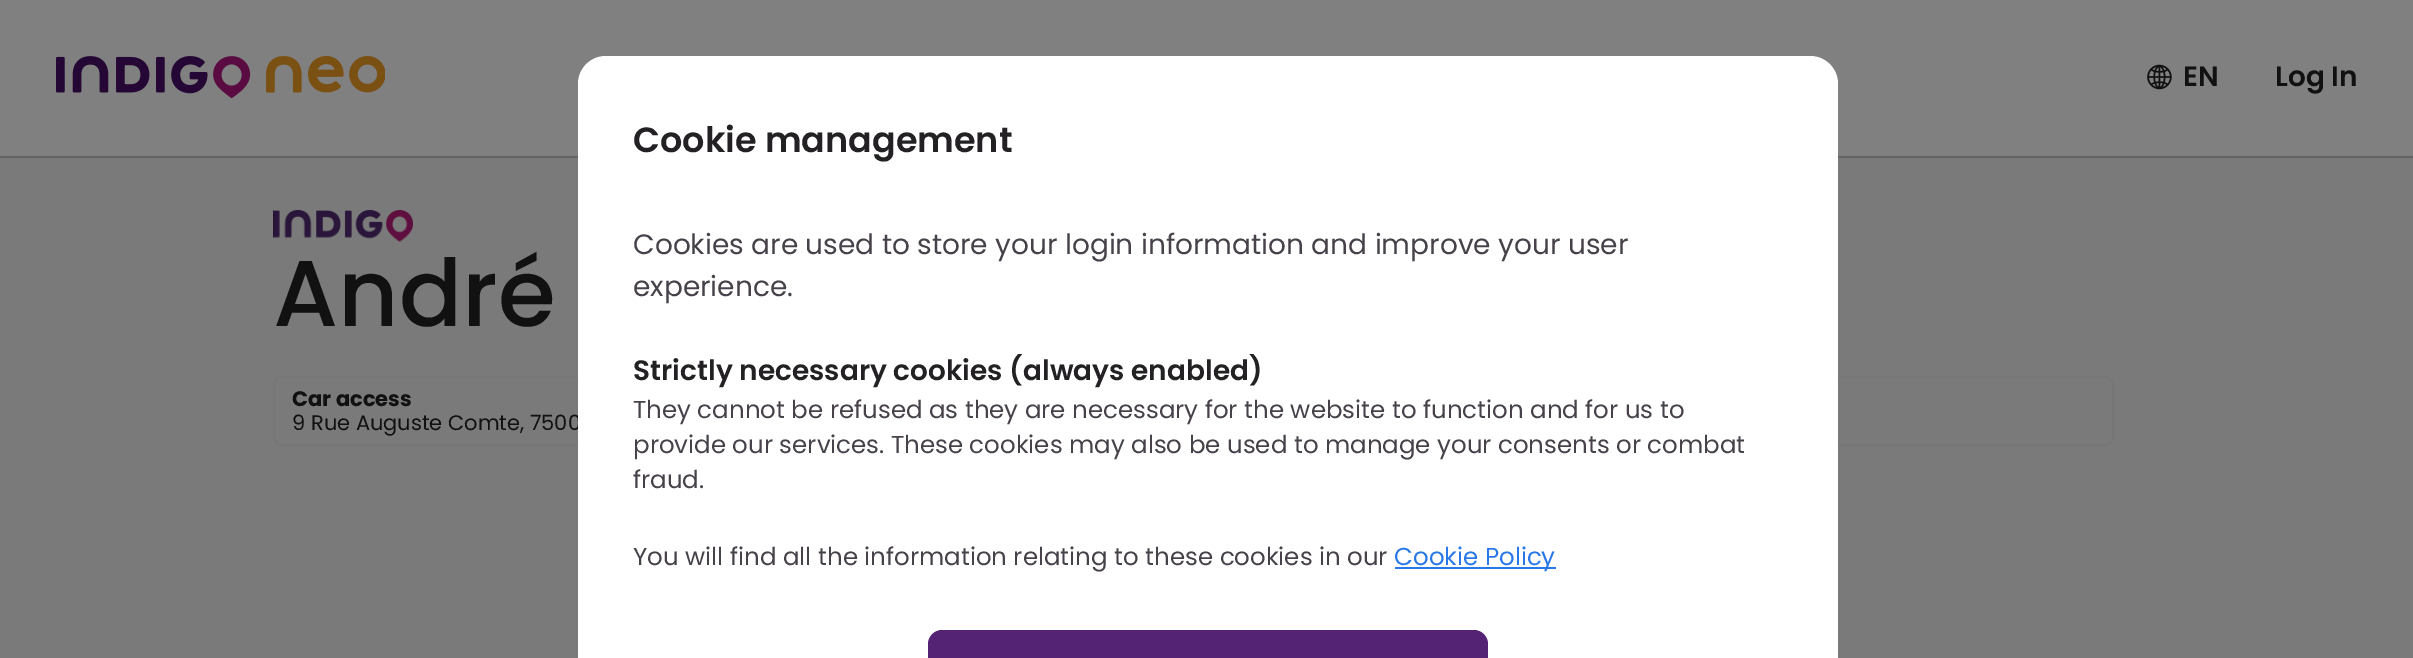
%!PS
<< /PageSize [2413 658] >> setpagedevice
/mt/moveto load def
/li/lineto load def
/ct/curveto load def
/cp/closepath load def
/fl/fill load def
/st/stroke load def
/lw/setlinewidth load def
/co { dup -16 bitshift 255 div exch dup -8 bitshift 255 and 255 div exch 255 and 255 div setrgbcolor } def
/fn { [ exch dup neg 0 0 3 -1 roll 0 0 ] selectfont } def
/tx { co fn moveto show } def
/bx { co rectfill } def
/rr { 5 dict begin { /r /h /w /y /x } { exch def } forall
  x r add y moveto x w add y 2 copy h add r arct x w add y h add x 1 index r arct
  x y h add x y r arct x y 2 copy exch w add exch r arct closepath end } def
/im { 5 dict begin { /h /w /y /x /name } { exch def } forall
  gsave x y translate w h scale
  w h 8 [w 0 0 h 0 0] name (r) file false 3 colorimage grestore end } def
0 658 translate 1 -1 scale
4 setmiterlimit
0 0 2413 658 16#7A7A7A bx
0 156 2413 2 16#646464 bx
0 0 2413 156 16#808080 bx
(media/1.raw) 56 56 329 43 im
(media/2.raw) 2147 64 25 26 im
(media/3.raw) 273 210 140 32 im
16#777777 co
2 lw
274 377 1839 68 8 rr st
(EN) 2183 86 /Poppins-SemiBold 28 16#111111 tx
(Log In) 2275 86 /Poppins-SemiBold 28 16#111111 tx
(André) 273 326 /Poppins-Medium 93.5 16#111111 tx
(Car access) 292 406 /Poppins-Bold 21 16#111111 tx
(9 Rue Auguste Comte, 7500) 292 430 /Poppins-Regular 21 16#111111 tx
16#FFFFFF co
606 56 mt 1810 56 li 1825.5 56 1838 68.5 1838 84 ct 1838 658 li 578 658 li 578 84 li 578 68.5 590.5 56 606 56 ct cp fl
(Cookie management) 633 152 /Poppins-SemiBold 35 16#232124 tx
(Cookies are used to store your login information and improve your user) 633 254 /Poppins-Regular 28 16#47424A tx
(experience.) 633 296 /Poppins-Regular 28 16#47424A tx
(Strictly necessary cookies \(always enabled\)) 633 380 /Poppins-SemiBold 28 16#232124 tx
(They cannot be refused as they are necessary for the website to function and for us to) 633 418 /Poppins-Regular 24.5 16#47424A tx
(provide our services. These cookies may also be used to manage your consents or combat) 633 453 /Poppins-Regular 24.5 16#47424A tx
(fraud.) 633 488 /Poppins-Regular 24.5 16#47424A tx
(You will find all the information relating to these cookies in our) 633 565 /Poppins-Regular 24.5 16#47424A tx
1395 567 161 2 16#2978E7 bx
(Cookie Policy) 1394 565 /Poppins-Regular 24.5 16#2978E7 tx
16#552373 co
942 630 mt 1474 630 li 1481.5 630 1488 636.5 1488 644 ct 1488 658 li 928 658 li 928 644 li 928 636.5 934.5 630 942 630 ct cp fl
showpage
